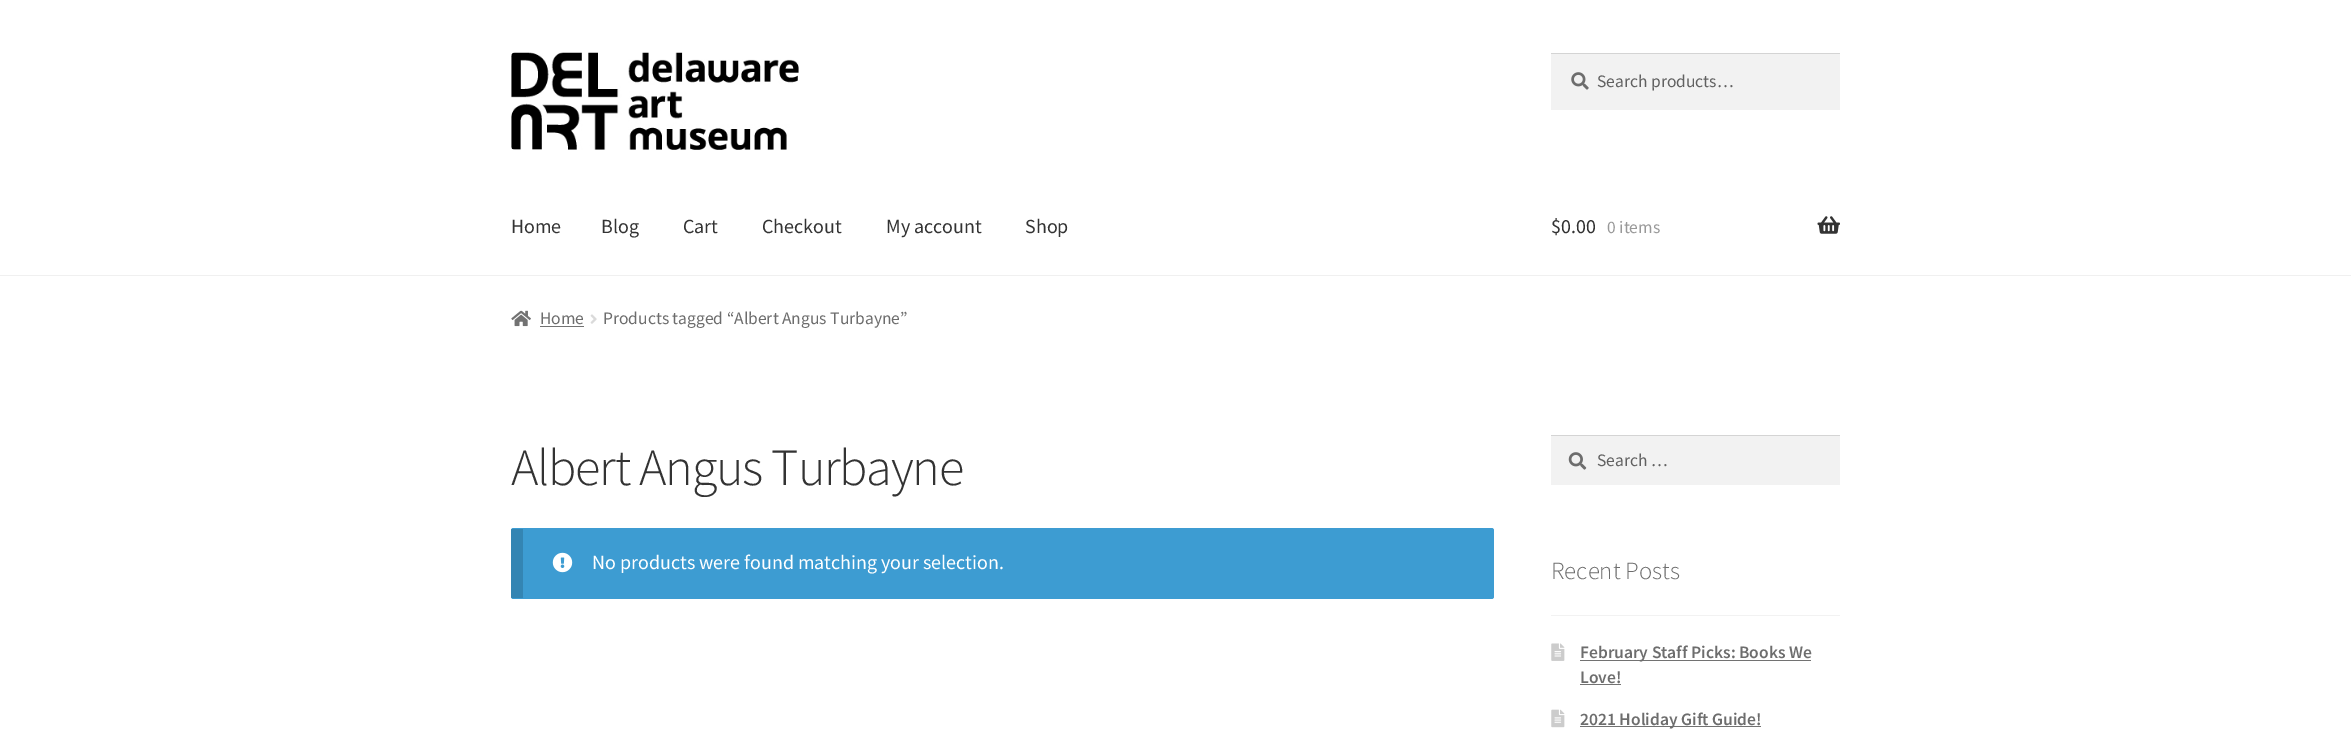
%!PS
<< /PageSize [2351 738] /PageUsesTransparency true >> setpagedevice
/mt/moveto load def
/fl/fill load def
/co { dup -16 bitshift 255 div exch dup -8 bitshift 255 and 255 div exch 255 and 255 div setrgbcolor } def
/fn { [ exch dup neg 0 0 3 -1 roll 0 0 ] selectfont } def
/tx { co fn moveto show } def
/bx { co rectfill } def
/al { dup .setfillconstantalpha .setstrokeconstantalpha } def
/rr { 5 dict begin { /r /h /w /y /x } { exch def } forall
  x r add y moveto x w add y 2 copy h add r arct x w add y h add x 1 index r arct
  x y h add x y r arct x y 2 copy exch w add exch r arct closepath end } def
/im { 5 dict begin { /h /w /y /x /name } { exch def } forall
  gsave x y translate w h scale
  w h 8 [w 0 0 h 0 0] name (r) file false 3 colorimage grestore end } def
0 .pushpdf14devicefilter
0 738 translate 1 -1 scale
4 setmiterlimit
0 0 2351 738 16#FFFFFF bx
0 275 2351 1 16#F0F0F0 bx
(media/1.raw) 511 52 288 98 im
1551 54 289 56 16#F2F2F2 bx
(media/2.raw) 1571 72 18 18 im
1551 53 289 1 16#D4D4D4 bx
(media/3.raw) 1817 216 23 18 im
(media/4.raw) 511 310 20 17 im
540 326 44 1 16#727272 bx
(media/5.raw) 590 314 7 10 im
16#3D9CD2 co
511 528 983 71 2.5 rr fl
0.15 al
511 529 12 69 16#000000 bx
1 al
(media/6.raw) 552 552 21 21 im
1551 436 289 49 16#F2F2F2 bx
(media/7.raw) 1568 452 19 18 im
1551 435 289 1 16#D4D4D4 bx
1551 615 289 1 16#F2F2F2 bx
(media/8.raw) 1551 643 14 18 im
1580 660 231 1 16#727272 bx
1580 684 41 1 16#727272 bx
(media/9.raw) 1551 709 14 19 im
1580 726 181 1 16#727272 bx
(Search products…) 1597 87 /SourceSansPro-Regular 17.5 16#616161 tx
(Home) 511 233 /SourceSansPro-Regular 20 16#333333 tx
(Blog) 601 233 /SourceSansPro-Regular 20 16#333333 tx
(Cart) 683 233 /SourceSansPro-Regular 20 16#333333 tx
(Checkout) 762 233 /SourceSansPro-Regular 20 16#333333 tx
(My account) 886 233 /SourceSansPro-Regular 20 16#333333 tx
(Shop) 1025 233 /SourceSansPro-Regular 20 16#333333 tx
($0.00) 1551 233 /SourceSansPro-Regular 20 16#333333 tx
(0 items) 1607 233 /SourceSansPro-Regular 17.5 16#999999 tx
(Home) 540 324 /SourceSansPro-Regular 17.5 16#6D6D6D tx
(Products tagged “Albert Angus Turbayne”) 603 324 /SourceSansPro-Regular 17.5 16#6D6D6D tx
/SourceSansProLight-Light 52.25 fn
16#333333 co
511 485 mt -1.25 0 (Albert Angus Turbayne) ashow
(No products were found matching your selection.) 592 569 /SourceSansPro-Regular 20 16#FFFFFF tx
(Search …) 1597 466 /SourceSansPro-Regular 17.5 16#616161 tx
(Recent Posts) 1551 579 /SourceSansProLight-Light 24.75 16#6D6D6D tx
(February Staff Picks: Books We) 1580 658 /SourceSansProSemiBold-SemiBold 17.5 16#6D6D6D tx
(Love!) 1580 683 /SourceSansProSemiBold-SemiBold 17.5 16#6D6D6D tx
(2021 Holiday Gift Guide!) 1580 725 /SourceSansProSemiBold-SemiBold 17.5 16#6D6D6D tx
.poppdf14devicefilter showpage
